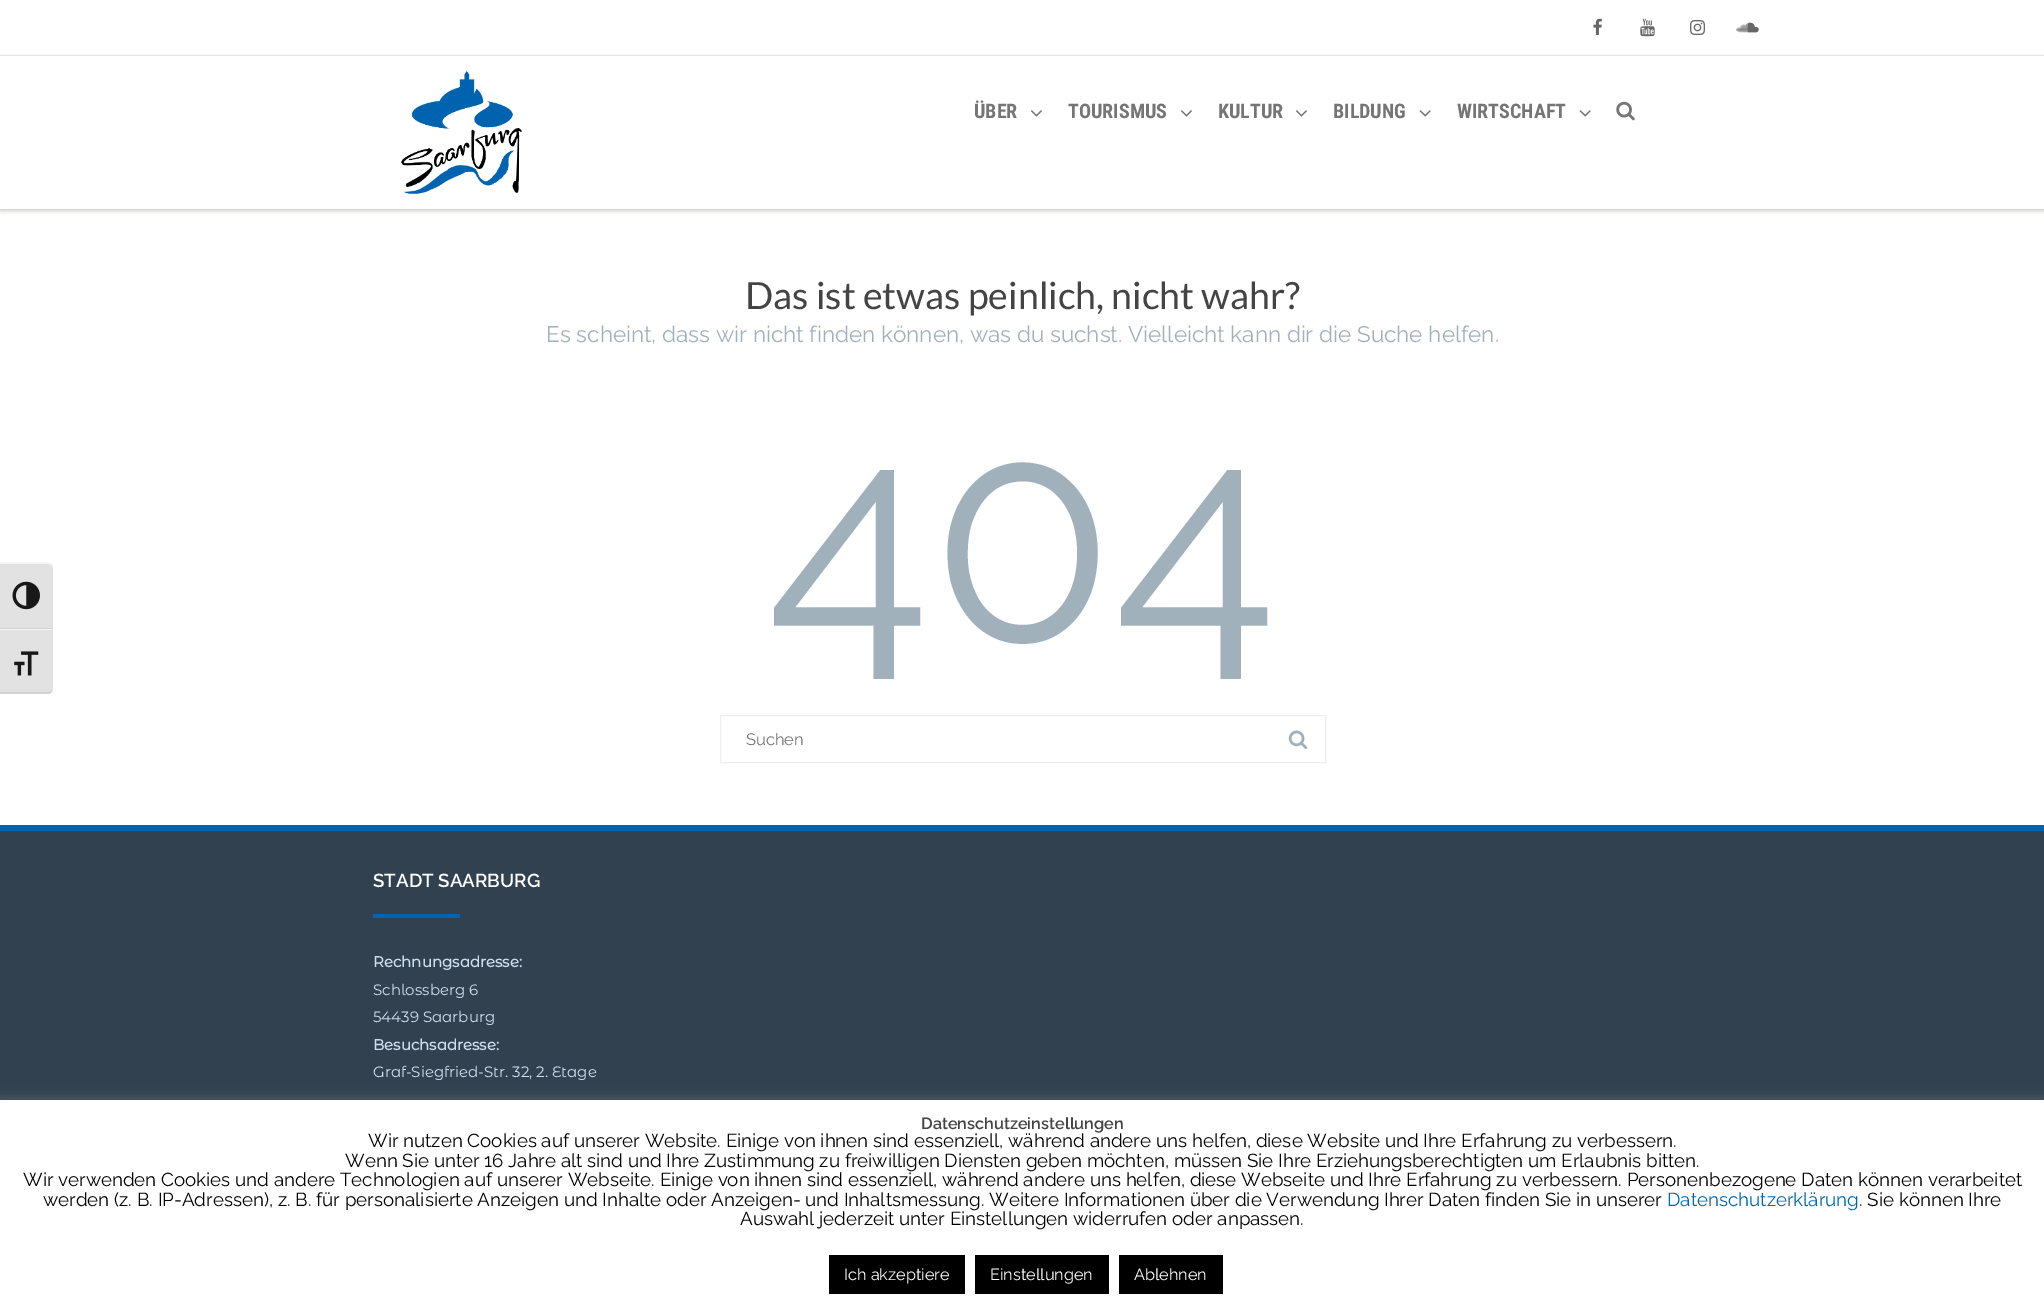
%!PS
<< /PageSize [2044 1308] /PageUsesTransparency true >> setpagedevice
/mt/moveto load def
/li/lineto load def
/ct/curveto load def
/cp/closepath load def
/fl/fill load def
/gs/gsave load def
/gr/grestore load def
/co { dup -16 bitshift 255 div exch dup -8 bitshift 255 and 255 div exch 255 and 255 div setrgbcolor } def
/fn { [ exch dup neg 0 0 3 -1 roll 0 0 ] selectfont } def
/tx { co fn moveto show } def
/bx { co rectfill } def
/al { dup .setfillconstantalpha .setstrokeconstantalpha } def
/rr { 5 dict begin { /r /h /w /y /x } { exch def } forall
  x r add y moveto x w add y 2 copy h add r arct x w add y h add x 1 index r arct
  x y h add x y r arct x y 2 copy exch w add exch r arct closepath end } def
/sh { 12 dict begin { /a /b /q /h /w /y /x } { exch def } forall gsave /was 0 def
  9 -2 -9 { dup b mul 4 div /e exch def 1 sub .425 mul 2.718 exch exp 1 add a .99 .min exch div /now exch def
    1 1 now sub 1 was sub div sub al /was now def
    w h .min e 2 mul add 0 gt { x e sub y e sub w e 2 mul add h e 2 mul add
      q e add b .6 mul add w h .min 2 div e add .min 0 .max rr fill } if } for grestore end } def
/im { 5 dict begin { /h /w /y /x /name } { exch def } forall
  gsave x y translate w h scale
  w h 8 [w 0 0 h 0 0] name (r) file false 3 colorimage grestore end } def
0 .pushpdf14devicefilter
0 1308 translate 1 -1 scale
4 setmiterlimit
0 0 2044 1308 16#FFFFFF bx
16#E2E2E2 co
0 563 mt 48 563 li 51 563 53 565 53 568 ct 53 629 li 0 629 li cp fl
16#F5F5F5 co
0 564 mt 48 564 li 50 564 52 565 52 568 ct 52 566 51 563 49 562 ct 0 562 li cp fl
0 628 52 1 16#D2D2D2 bx
(media/1.raw) 12 581 28 29 im
16#E2E2E2 co
0 629 mt 53 629 li 53 689 li 53 692 51 694 48 694 ct 0 694 li cp fl
0 629 52 1 16#F5F5F5 bx
16#D2D2D2 co
49 694 mt 51 693 52 691 52 689 ct 52 691 50 692 48 692 ct 0 692 li 0 694 li cp fl
(media/2.raw) 14 651 25 25 im
0 55 2044 1 16#EEEEEE bx
(media/3.raw) 1593 18 9 17 im
(media/4.raw) 1640 18 15 19 im
(media/5.raw) 1690 20 15 15 im
(media/6.raw) 1736 22 23 11 im
gs
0 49 mt 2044 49 li 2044 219 li 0 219 li cp 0 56 mt 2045 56 li 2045 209 li 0 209 li cp eoclip newpath
16#A7A9A4 co
0 58 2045 152 0 2.5 .75 sh
gr
(media/7.raw) 401 70 121 124 im
(media/8.raw) 1030 110 12 7 im
(media/8.raw) 1180 110 12 7 im
(media/8.raw) 1295 110 12 7 im
(media/9.raw) 1419 110 12 7 im
(media/9.raw) 1579 110 12 7 im
(media/10.raw) 1616 101 19 20 im
16#ECEEF0 co
720.5 715.5 605 47 rectstroke
(media/11.raw) 1288 730 20 19 im
0 831 2044 269 16#314150 bx
0 825 2044 6 16#0064B0 bx
373 914 87 4 16#0064B0 bx
16#ACABAB co
0 1099 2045 209 0 6 .3 sh
0 1100 2044 208 16#FFFFFF bx
829 1255 136 39 16#000000 bx
975 1255 134 39 16#000000 bx
1119 1255 104 39 16#000000 bx
(ÜBER) 974 118 /RobotoCondensed-Bold 20 16#757575 tx
(TOURISMUS) 1068 118 /RobotoCondensed-Bold 20 16#757575 tx
(KULTUR) 1218 118 /RobotoCondensed-Bold 20 16#757575 tx
(BILDUNG) 1333 118 /RobotoCondensed-Bold 20 16#757575 tx
(WIRTSCHAFT) 1457 118 /RobotoCondensed-Bold 20 16#757575 tx
(Das ist etwas peinlich, nicht wahr?) 745 309 /Lato-Regular 37.5 16#444444 tx
(Es scheint, dass wir nicht finden können, was du suchst. Vielleicht kann dir die Suche helfen.) 546 342 /Raleway-Regular 22.5 16#A1B1BC tx
(404) 767 641 /Raleway-Regular 300 16#A1B1BC tx
(Suchen) 746 745 /Raleway-Regular 16.5 16#757575 tx
(STADT SAARBURG) 373 887 /Raleway-SemiBold 18.75 16#FFFFFF tx
(Rechnungsadresse:) 373 967 /MontserratAlternates-Bold 15 16#CDDEEE tx
(Schlossberg 6) 373 995 /MontserratAlternates-Regular 15 16#CDDEEE tx
(54439 Saarburg) 373 1022 /MontserratAlternates-Regular 15 16#CDDEEE tx
(Besuchsadresse:) 373 1050 /MontserratAlternates-Bold 15 16#CDDEEE tx
(Graf-Siegfried-Str. 32, 2. Etage) 373 1077 /MontserratAlternates-Regular 15 16#CDDEEE tx
(Datenschutzeinstellungen) 921 1129 /Raleway-SemiBold 16.25 16#444444 tx
(Wir nutzen Cookies auf unserer Website. Einige von ihnen sind essenziell, während andere uns helfen, diese Website und Ihre Erfahrung zu verbessern.) 368 1147 /Raleway-Regular 18.75 16#000000 tx
(Wenn Sie unter 16 Jahre alt sind und Ihre Zustimmung zu freiwilligen Diensten geben möchten, müssen Sie Ihre Erziehungsberechtigten um Erlaubnis bitten.) 345 1167 /Raleway-Regular 18.75 16#000000 tx
(Wir verwenden Cookies und andere Technologien auf unserer Webseite. Einige von ihnen sind essenziell, während andere uns helfen, diese Webseite und Ihre Erfahrung zu verbessern. Personenbezogene Daten können verarbeitet) 23 1186 /Raleway-Regular 18.75 16#000000 tx
(werden \(z. B. IP-Adressen\), z. B. für personalisierte Anzeigen und Inhalte oder Anzeigen- und Inhaltsmessung. Weitere Informationen über die Verwendung Ihrer Daten finden Sie in unserer) 43 1206 /Raleway-Regular 18.75 16#000000 tx
(Datenschutzerklärung) 1667 1206 /Raleway-Regular 18.75 16#0064B0 tx
(. Sie können Ihre) 1859 1206 /Raleway-Regular 18.75 16#000000 tx
(Auswahl jederzeit unter Einstellungen widerrufen oder anpassen.) 740 1225 /Raleway-Regular 18.75 16#000000 tx
(Ich akzeptiere) 844 1280 /Raleway-Regular 16.25 16#FFFFFF tx
(Einstellungen) 990 1280 /Raleway-Regular 16.25 16#FFFFFF tx
(Ablehnen) 1134 1280 /Raleway-Regular 16.25 16#FFFFFF tx
.poppdf14devicefilter showpage
